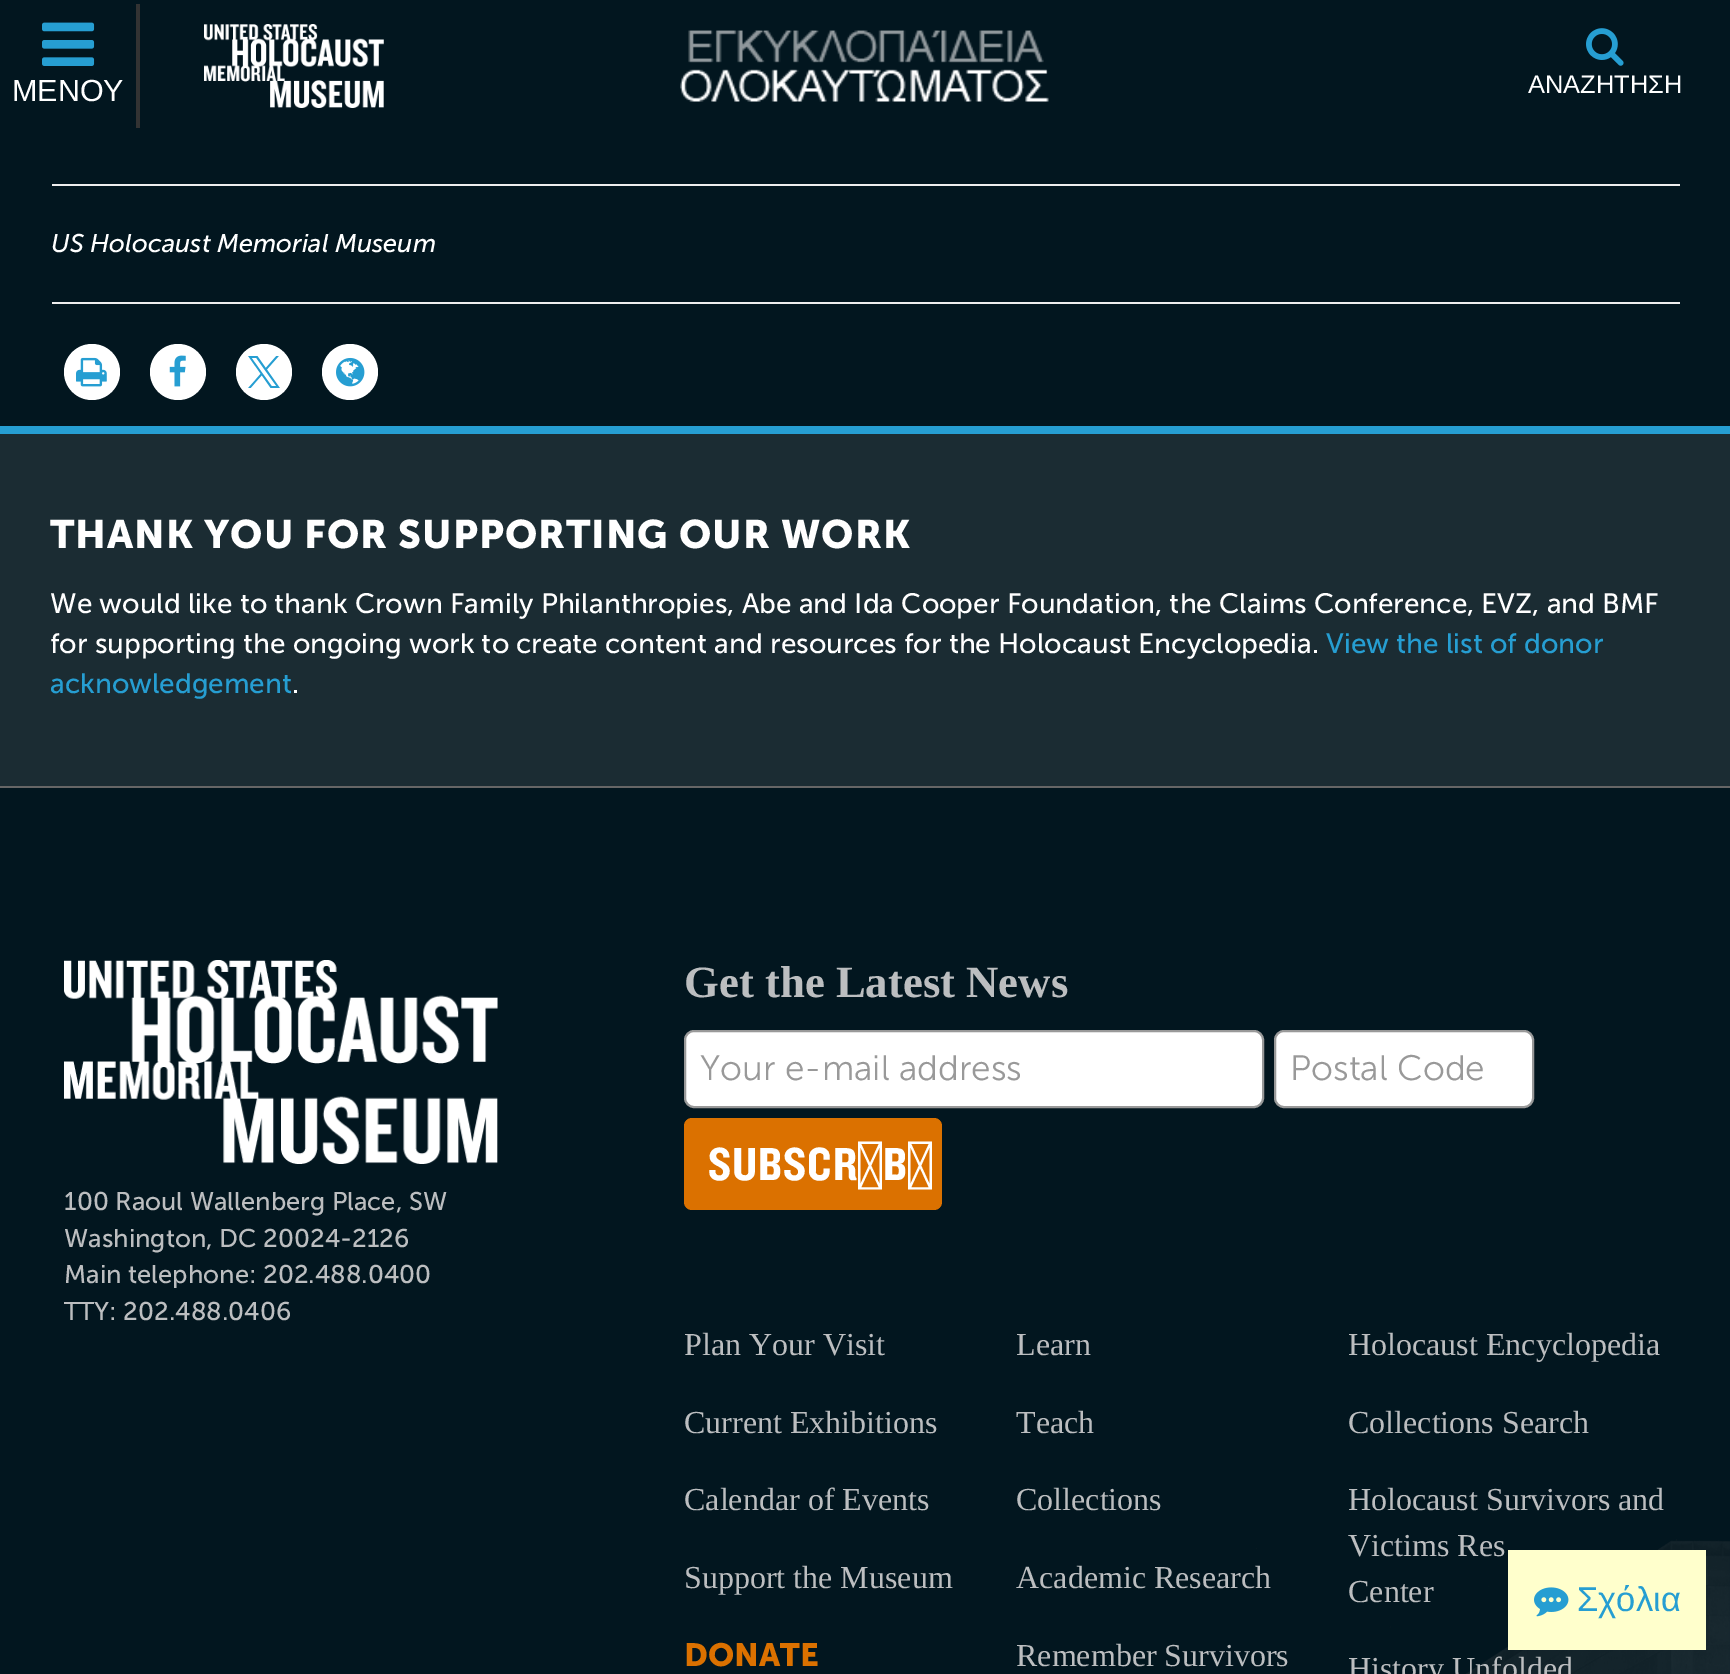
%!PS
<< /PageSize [1730 1674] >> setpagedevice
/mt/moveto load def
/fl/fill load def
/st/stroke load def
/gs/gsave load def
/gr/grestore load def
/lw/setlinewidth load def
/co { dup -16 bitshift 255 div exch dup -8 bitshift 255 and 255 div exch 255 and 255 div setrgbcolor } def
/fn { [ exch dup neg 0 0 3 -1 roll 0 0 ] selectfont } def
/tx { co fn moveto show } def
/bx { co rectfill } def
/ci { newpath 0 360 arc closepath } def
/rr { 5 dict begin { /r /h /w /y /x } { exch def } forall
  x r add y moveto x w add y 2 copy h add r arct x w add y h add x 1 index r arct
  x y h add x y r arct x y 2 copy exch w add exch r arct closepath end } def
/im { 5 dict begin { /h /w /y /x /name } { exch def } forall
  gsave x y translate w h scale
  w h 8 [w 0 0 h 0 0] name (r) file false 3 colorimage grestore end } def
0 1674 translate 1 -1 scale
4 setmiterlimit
0 0 1730 1674 16#1B2C33 bx
0 0 1730 426 16#02161F bx
136 4 4 124 16#333333 bx
(media/1.raw) 42 22 53 44 im
(media/2.raw) 204 24 180 84 im
(media/3.raw) 680 30 369 72 im
(media/4.raw) 1586 28 38 38 im
52 184 1628 2 16#EEEEEE bx
52 302 1628 2 16#EEEEEE bx
16#FFFFFF co
92 372 28 ci fl
(media/5.raw) 76 357 31 30 im
178 372 28 ci fl
(media/6.raw) 169 355 17 32 im
264 372 28 ci fl
(media/7.raw) 248 356 32 32 im
350 372 28 ci fl
(media/8.raw) 336 357 29 30 im
0 426 1730 8 16#269ED2 bx
0 788 1730 886 16#02161F bx
0 786 1730 2 16#666666 bx
(media/9.raw) 64 960 434 204 im
16#FFFFFF co
685 1031 578 76 9 rr gs fl gr
16#999999 co
2 lw
st
16#FFFFFF co
1275 1031 258 76 9 rr gs fl gr
16#999999 co
st
16#DB7100 co
684 1118 258 92 8 rr fl
(media/10.raw) 1256 1539 474 135 im
1508 1550 198 100 16#FFFFCC bx
(media/11.raw) 1534 1587 35 30 im
(ΜΕΝΟΥ) 12 101 /LiberationSans-Regular 30.5 16#FFFFFF tx
(ΑΝΑΖΗΤΗΣΗ) 1528 93 /LiberationSans-Regular 25.5 16#FFFFFF tx
(US Holocaust Memorial Museum) 51 252 /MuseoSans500-Italic 25.5 16#FFFFFF tx
/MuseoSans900-Bold 39.5 fn
50 548 mt 1 0 (THANK YOU FOR SUPPORTING OUR WORK) ashow
(We would like to thank Crown Family Philanthropies, Abe and Ida Cooper Foundation, the Claims Conference, EVZ, and BMF) 50 613 /MuseoSans500-Regular 28 16#FFFFFF tx
(for supporting the ongoing work to create content and resources for the Holocaust Encyclopedia.) 50 653 /MuseoSans500-Regular 28 16#FFFFFF tx
(View the list of donor) 1326 653 /MuseoSans500-Regular 28 16#269ED2 tx
(acknowledgement) 50 693 /MuseoSans500-Regular 28 16#269ED2 tx
(.) 292 693 /MuseoSans500-Regular 28 16#FFFFFF tx
(100 Raoul Wallenberg Place, SW) 64 1210 /MuseoSans500-Regular 25.6 16#BCBEC0 tx
(Washington, DC 20024-2126) 64 1247 /MuseoSans500-Regular 25.6 16#BCBEC0 tx
(Main telephone: 202.488.0400) 64 1283 /MuseoSans500-Regular 25.6 16#BCBEC0 tx
(TTY: 202.488.0406) 64 1320 /MuseoSans500-Regular 25.6 16#BCBEC0 tx
(Get the Latest News) 684 997 /LiberationSerif-Bold 44.75 16#BCBEC0 tx
(Your e-mail address) 700 1080 /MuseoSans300-Light 35.25 16#999999 tx
(Postal Code) 1290 1080 /MuseoSans300-Light 35.25 16#999999 tx
/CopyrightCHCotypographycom-Light 48 fn
16#FFFFFF co
708 1180 mt 1 0 (SUBSCRIBE) ashow
(Plan Your Visit) 684 1355 /LiberationSerif-Regular 32 16#BCBEC0 tx
(Current Exhibitions) 684 1433 /LiberationSerif-Regular 32 16#BCBEC0 tx
(Calendar of Events) 684 1510 /LiberationSerif-Regular 32 16#BCBEC0 tx
(Support the Museum) 684 1588 /LiberationSerif-Regular 32 16#BCBEC0 tx
(DONATE) 684 1666 /MuseoSans900-Bold 32 16#DB7100 tx
(Learn) 1016 1355 /LiberationSerif-Regular 32 16#BCBEC0 tx
(Teach) 1016 1433 /LiberationSerif-Regular 32 16#BCBEC0 tx
(Collections) 1016 1510 /LiberationSerif-Regular 32 16#BCBEC0 tx
(Academic Research) 1016 1588 /LiberationSerif-Regular 32 16#BCBEC0 tx
(Remember Survivors) 1016 1666 /LiberationSerif-Regular 32 16#BCBEC0 tx
(Holocaust Encyclopedia) 1348 1355 /LiberationSerif-Regular 32 16#BCBEC0 tx
(Collections Search) 1348 1433 /LiberationSerif-Regular 32 16#BCBEC0 tx
(Holocaust Survivors and) 1348 1510 /LiberationSerif-Regular 32 16#BCBEC0 tx
(Victims Res) 1348 1556 /LiberationSerif-Regular 32 16#BCBEC0 tx
(Center) 1348 1602 /LiberationSerif-Regular 32 16#BCBEC0 tx
(History Unfolded) 1348 1679 /LiberationSerif-Regular 32 16#BCBEC0 tx
(Σχόλια) 1577 1611 /LiberationSans-Regular 34.5 16#269ED2 tx
showpage
